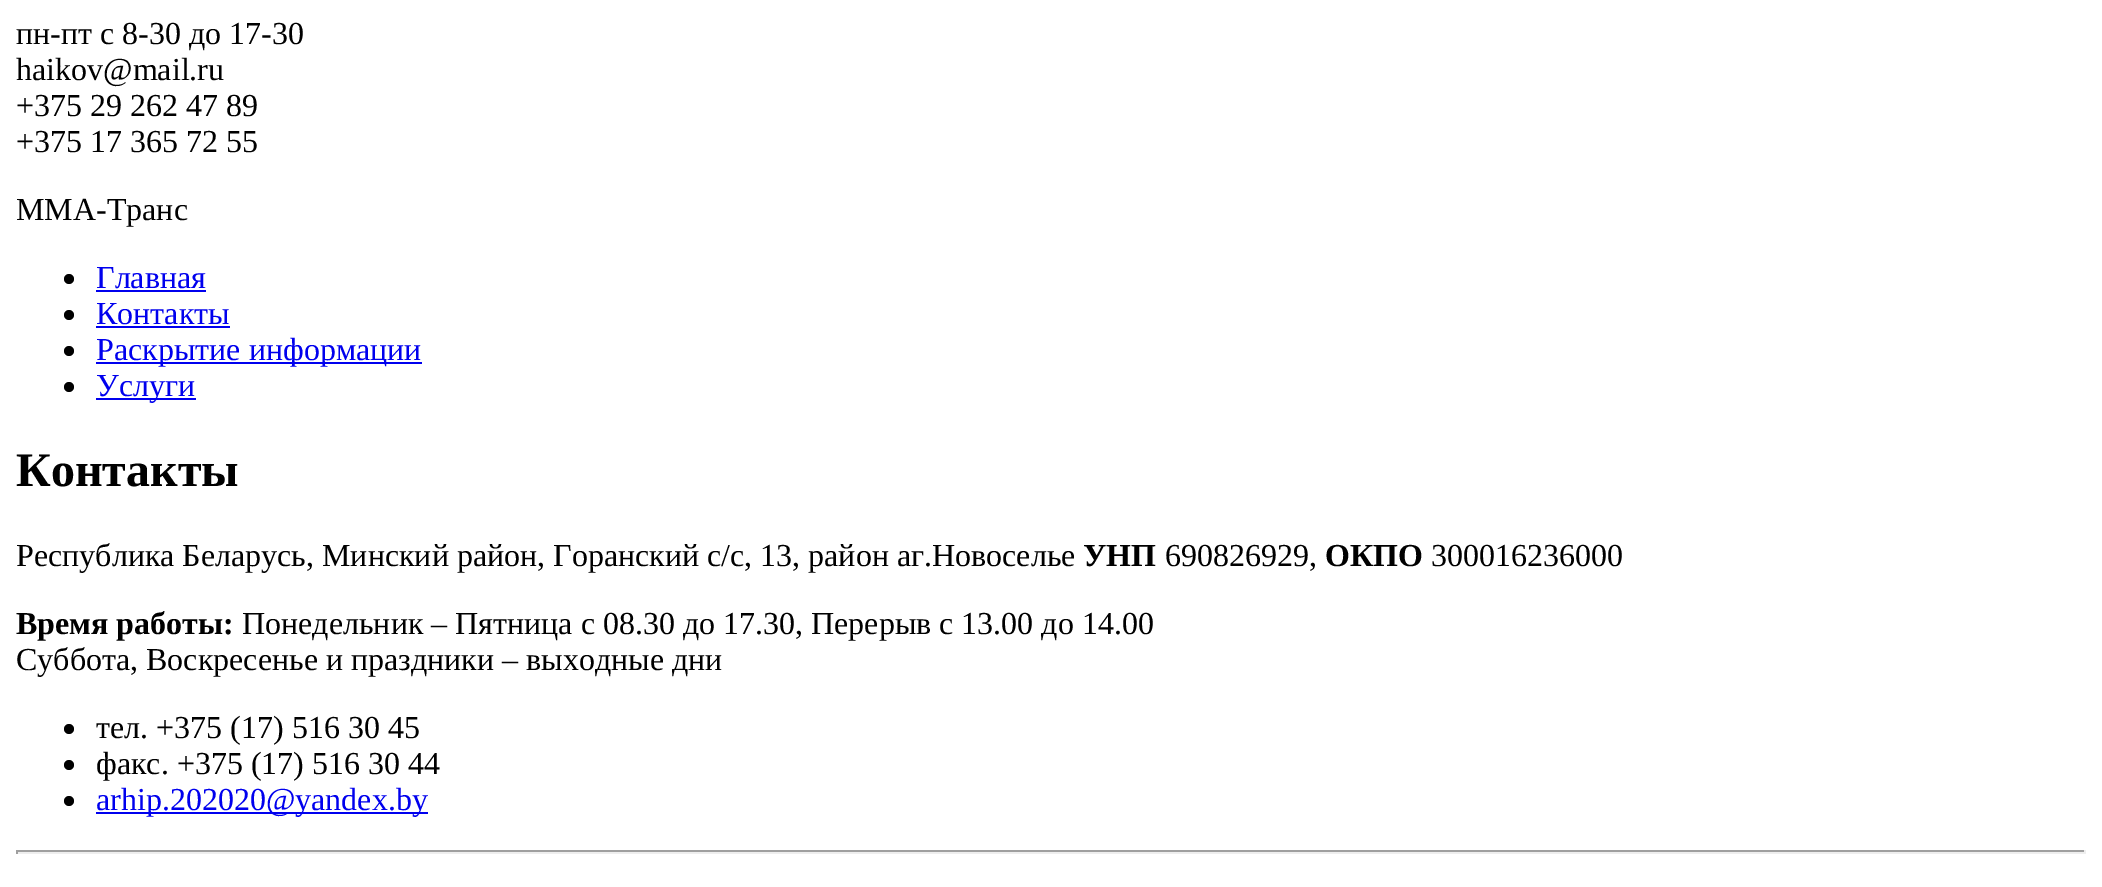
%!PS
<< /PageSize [2102 887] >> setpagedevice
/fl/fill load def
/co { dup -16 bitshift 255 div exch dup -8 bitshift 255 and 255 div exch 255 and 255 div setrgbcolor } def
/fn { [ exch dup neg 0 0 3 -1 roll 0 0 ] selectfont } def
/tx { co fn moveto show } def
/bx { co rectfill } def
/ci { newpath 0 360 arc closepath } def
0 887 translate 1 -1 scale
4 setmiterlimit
0 0 2102 887 16#FFFFFF bx
16#000000 co
69 279 5 ci fl
96 290 110 2 16#0000EE bx
16#000000 co
69 315 5 ci fl
96 326 134 2 16#0000EE bx
16#000000 co
69 351 5 ci fl
96 362 326 2 16#0000EE bx
16#000000 co
69 387 5 ci fl
96 398 100 2 16#0000EE bx
16#000000 co
69 729 5 ci fl
69 765 5 ci fl
69 801 5 ci fl
96 812 332 2 16#0000EE bx
16 850 2070 2 16#9F9F9F bx
2084 850 2 4 16#EEEEEE bx
16 852 2070 2 16#EEEEEE bx
16 850 2 4 16#9F9F9F bx
(пн-пт с 8-30 до 17-30) 16 44 /LiberationSerif-Regular 32 16#000000 tx
(haikov@mail.ru) 16 80 /LiberationSerif-Regular 32 16#000000 tx
(+375 29 262 47 89) 16 116 /LiberationSerif-Regular 32 16#000000 tx
(+375 17 365 72 55) 16 152 /LiberationSerif-Regular 32 16#000000 tx
(ММА-Транс) 16 220 /LiberationSerif-Regular 32 16#000000 tx
(Главная) 96 288 /LiberationSerif-Regular 32 16#0000EE tx
(Контакты) 96 324 /LiberationSerif-Regular 32 16#0000EE tx
(Раскрытие информации) 96 360 /LiberationSerif-Regular 32 16#0000EE tx
(Услуги) 96 396 /LiberationSerif-Regular 32 16#0000EE tx
(Контакты) 16 486 /LiberationSerif-Bold 48 16#000000 tx
(Республика Беларусь, Минский район, Горанский с/с, 13, район аг.Новоселье) 16 566 /LiberationSerif-Regular 32 16#000000 tx
(УНП) 1083 566 /LiberationSerif-Bold 32 16#000000 tx
(690826929,) 1165 566 /LiberationSerif-Regular 32 16#000000 tx
(ОКПО) 1325 566 /LiberationSerif-Bold 32 16#000000 tx
(300016236000) 1431 566 /LiberationSerif-Regular 32 16#000000 tx
(Время работы:) 16 634 /LiberationSerif-Bold 32 16#000000 tx
(Понедельник – Пятница с 08.30 до 17.30, Перерыв с 13.00 до 14.00) 242 634 /LiberationSerif-Regular 32 16#000000 tx
(Суббота, Воскресенье и праздники – выходные дни) 16 670 /LiberationSerif-Regular 32 16#000000 tx
(тел. +375 \(17\) 516 30 45) 96 738 /LiberationSerif-Regular 32 16#000000 tx
(факс. +375 \(17\) 516 30 44) 96 774 /LiberationSerif-Regular 32 16#000000 tx
(arhip.202020@yandex.by) 96 810 /LiberationSerif-Regular 32 16#0000EE tx
showpage
